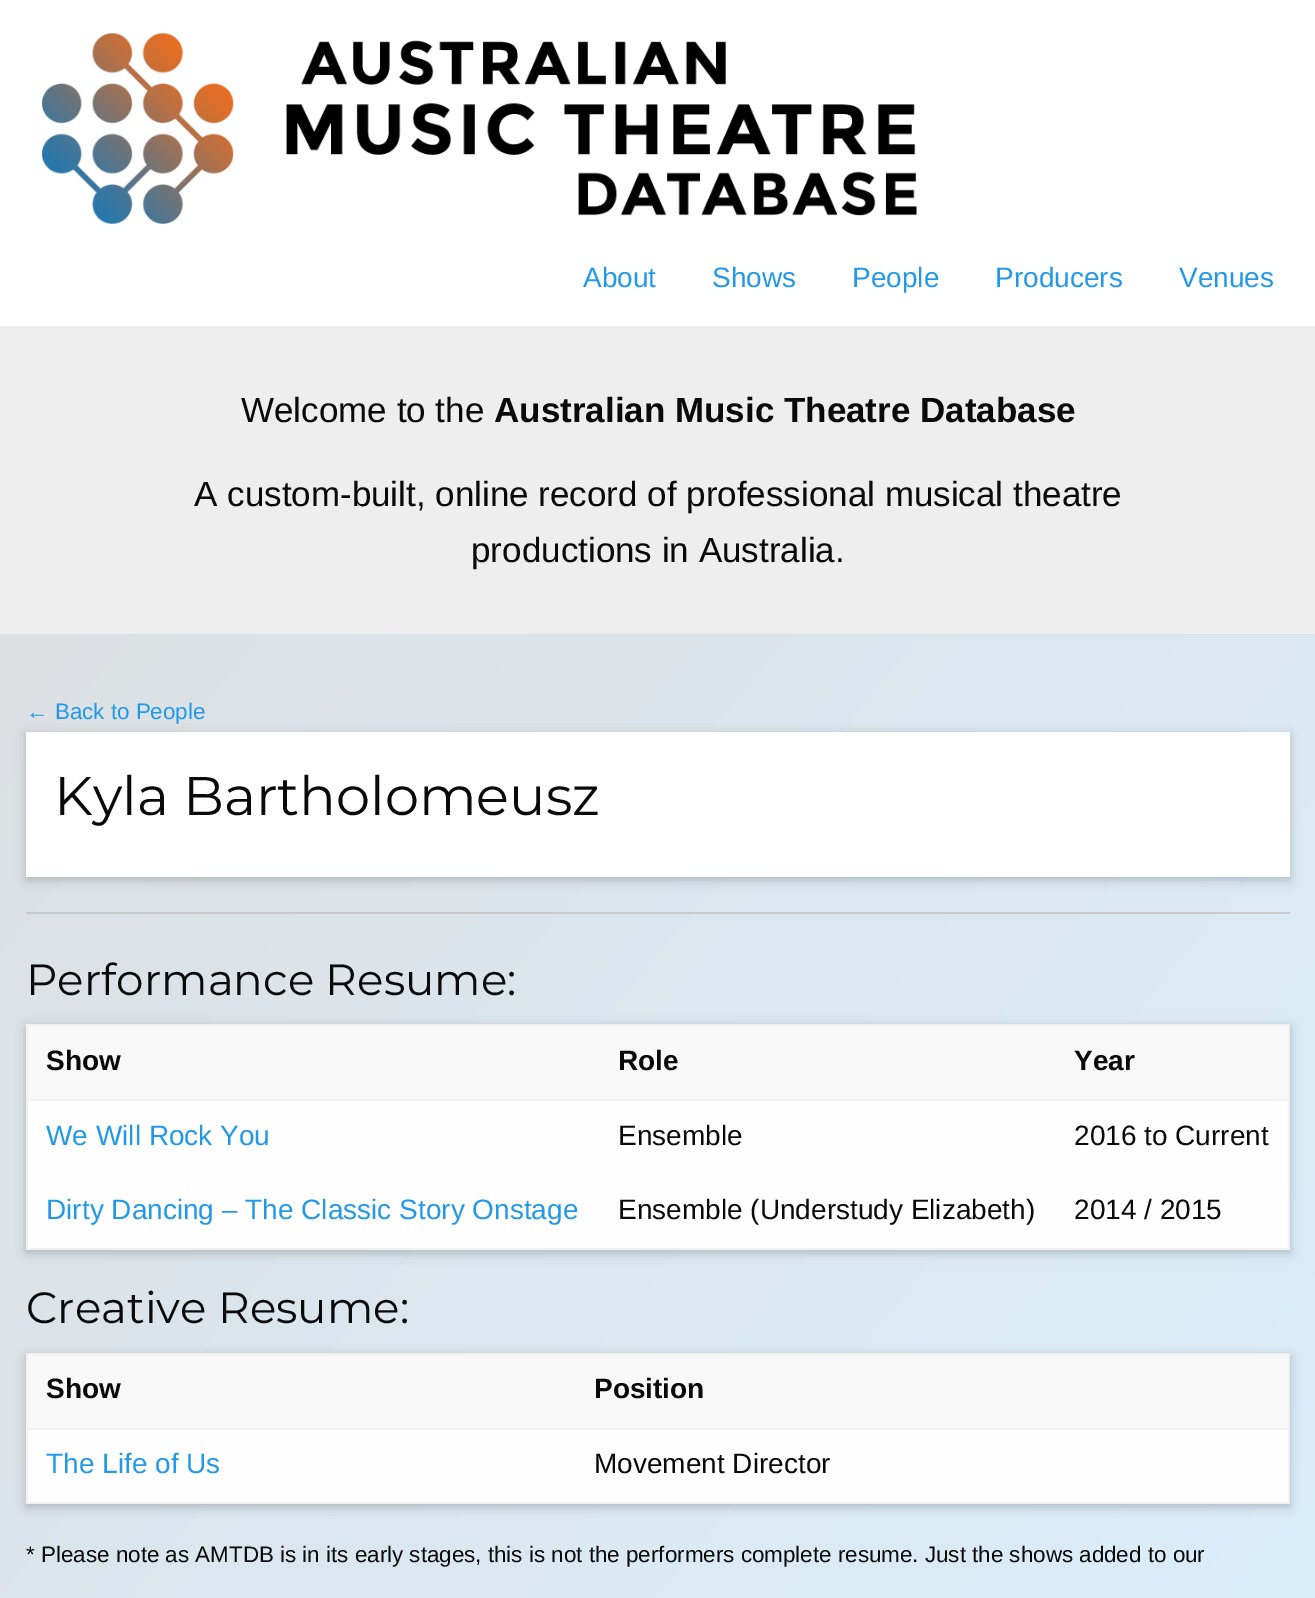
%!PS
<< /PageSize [1315 1598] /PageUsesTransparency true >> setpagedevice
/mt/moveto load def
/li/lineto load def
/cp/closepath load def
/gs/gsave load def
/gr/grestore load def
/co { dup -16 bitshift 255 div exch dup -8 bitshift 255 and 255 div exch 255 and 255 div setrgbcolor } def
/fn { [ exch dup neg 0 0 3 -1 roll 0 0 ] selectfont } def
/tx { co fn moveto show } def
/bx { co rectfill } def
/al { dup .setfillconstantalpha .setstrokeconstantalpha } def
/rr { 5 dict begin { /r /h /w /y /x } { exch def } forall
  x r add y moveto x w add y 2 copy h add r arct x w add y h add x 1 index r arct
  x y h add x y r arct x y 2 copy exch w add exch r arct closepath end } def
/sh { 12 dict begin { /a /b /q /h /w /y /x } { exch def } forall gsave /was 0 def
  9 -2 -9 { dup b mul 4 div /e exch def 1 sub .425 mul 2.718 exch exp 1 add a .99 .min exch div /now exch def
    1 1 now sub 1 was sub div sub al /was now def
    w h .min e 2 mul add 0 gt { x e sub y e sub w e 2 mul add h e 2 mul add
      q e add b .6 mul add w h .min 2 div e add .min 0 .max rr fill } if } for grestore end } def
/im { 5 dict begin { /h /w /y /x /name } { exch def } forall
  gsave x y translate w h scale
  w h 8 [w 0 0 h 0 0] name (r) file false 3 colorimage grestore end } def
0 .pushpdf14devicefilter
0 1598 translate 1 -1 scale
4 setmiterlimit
0 0 1315 1598 16#FFFFFF bx
gs 0 634 mt 1315 634 li 1315 1598 li 0 1598 li cp clip newpath
<< /ShadingType 2 /ColorSpace /DeviceRGB /Coords [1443 1445 -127 154] /Extend [true true] /Function << /FunctionType 2 /Domain [0 1] /C0 [.855 .933 .984] /C1 [.867 .867 .867] /N 1 >> >> shfill gr
(media/1.raw) 42 33 875 191 im
0 326 1315 308 16#EEEEEE bx
16#000000 co
26 735 1264 145 0 5 .2 sh
26 732 1264 145 16#FFFFFF bx
26 912 1264 2 16#CACACA bx
16#000000 co
26 1027 1264 226 0 5 .2 sh
28 1026 1260 73 16#F8F8F8 bx
26 1024 1264 2 16#F1F1F1 bx
26 1099 1264 2 16#F1F1F1 bx
1288 1099 2 151 16#F1F1F1 bx
1288 1024 2 77 16#F1F1F1 bx
26 1248 1264 2 16#F1F1F1 bx
26 1099 2 151 16#F1F1F1 bx
26 1024 2 77 16#F1F1F1 bx
28 1101 1260 147 16#FEFEFE bx
16#000000 co
26 1356 1264 151 0 5 .2 sh
28 1355 1260 73 16#F8F8F8 bx
26 1353 1264 2 16#F1F1F1 bx
26 1428 1264 2 16#F1F1F1 bx
1288 1428 2 75 16#F1F1F1 bx
1288 1353 2 77 16#F1F1F1 bx
26 1502 1264 2 16#F1F1F1 bx
26 1428 2 75 16#F1F1F1 bx
26 1353 2 77 16#F1F1F1 bx
28 1430 1260 72 16#FEFEFE bx
(About) 583 287 /LiberationSans-Regular 28 16#2199E8 tx
(Shows) 712 287 /LiberationSans-Regular 28 16#2199E8 tx
(People) 852 287 /LiberationSans-Regular 28 16#2199E8 tx
(Producers) 995 287 /LiberationSans-Regular 28 16#2199E8 tx
(Venues) 1179 287 /LiberationSans-Regular 28 16#2199E8 tx
(Welcome to the) 241 422 /LiberationSans-Regular 35 16#0A0A0A tx
(Australian Music Theatre Database) 494 422 /LiberationSans-Bold 35 16#0A0A0A tx
(A custom-built, online record of professional musical theatre) 194 506 /LiberationSans-Regular 35 16#0A0A0A tx
(productions in Australia.) 471 562 /LiberationSans-Regular 35 16#0A0A0A tx
(← Back to People) 26 719 /LiberationSans-Regular 22.4 16#2199E8 tx
(Kyla Bartholomeusz) 54 815 /Montserrat-Thin 54.25 16#0A0A0A tx
(Performance Resume:) 26 995 /Montserrat-Thin 43.75 16#0A0A0A tx
(Show) 46 1070 /LiberationSans-Bold 28 16#0A0A0A tx
(Role) 618 1070 /LiberationSans-Bold 28 16#0A0A0A tx
(Year) 1074 1070 /LiberationSans-Bold 28 16#0A0A0A tx
(We Will Rock You) 46 1145 /LiberationSans-Regular 28 16#2199E8 tx
(Ensemble) 618 1145 /LiberationSans-Regular 28 16#0A0A0A tx
(2016 to Current) 1074 1145 /LiberationSans-Regular 28 16#0A0A0A tx
(Dirty Dancing – The Classic Story Onstage) 46 1219 /LiberationSans-Regular 28 16#2199E8 tx
(Ensemble \(Understudy Elizabeth\)) 618 1219 /LiberationSans-Regular 28 16#0A0A0A tx
(2014 / 2015) 1074 1219 /LiberationSans-Regular 28 16#0A0A0A tx
(Creative Resume:) 26 1323 /Montserrat-Thin 43.75 16#0A0A0A tx
(Show) 46 1398 /LiberationSans-Bold 28 16#0A0A0A tx
(Position) 594 1398 /LiberationSans-Bold 28 16#0A0A0A tx
(The Life of Us) 46 1473 /LiberationSans-Regular 28 16#2199E8 tx
(Movement Director) 594 1473 /LiberationSans-Regular 28 16#0A0A0A tx
(* Please note as AMTDB is in its early stages, this is not the performers complete resume. Just the shows added to our) 26 1562 /LiberationSans-Regular 22.4 16#0A0A0A tx
.poppdf14devicefilter showpage
